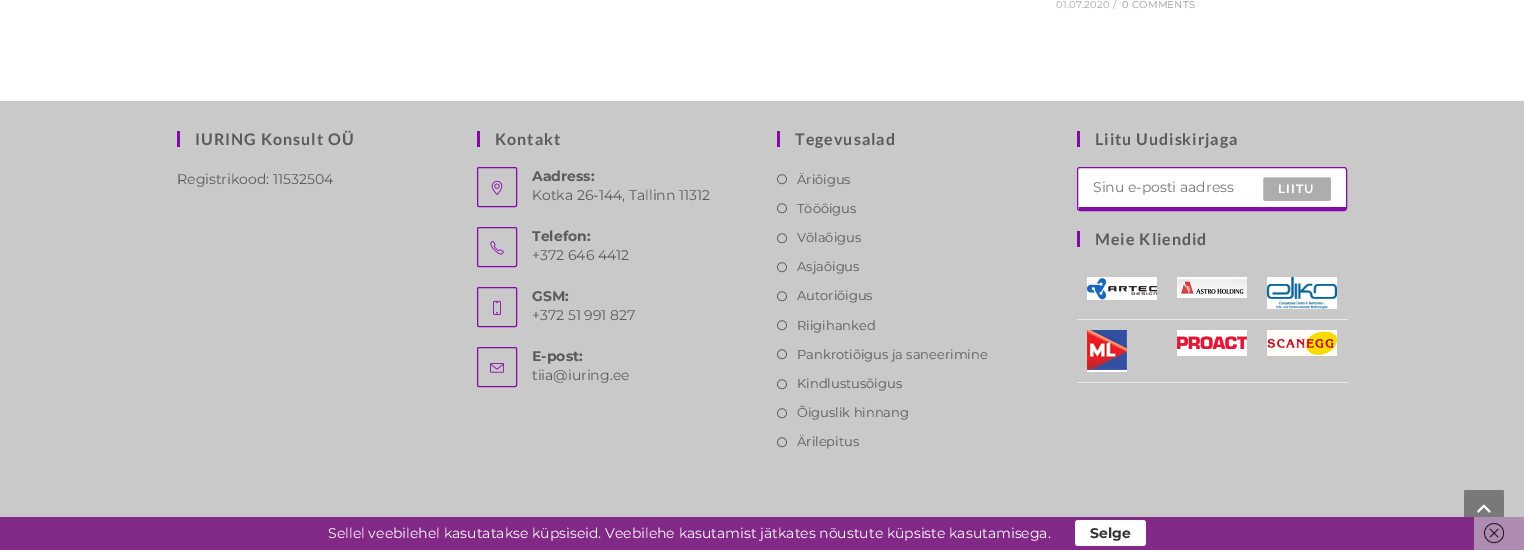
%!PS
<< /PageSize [1524 550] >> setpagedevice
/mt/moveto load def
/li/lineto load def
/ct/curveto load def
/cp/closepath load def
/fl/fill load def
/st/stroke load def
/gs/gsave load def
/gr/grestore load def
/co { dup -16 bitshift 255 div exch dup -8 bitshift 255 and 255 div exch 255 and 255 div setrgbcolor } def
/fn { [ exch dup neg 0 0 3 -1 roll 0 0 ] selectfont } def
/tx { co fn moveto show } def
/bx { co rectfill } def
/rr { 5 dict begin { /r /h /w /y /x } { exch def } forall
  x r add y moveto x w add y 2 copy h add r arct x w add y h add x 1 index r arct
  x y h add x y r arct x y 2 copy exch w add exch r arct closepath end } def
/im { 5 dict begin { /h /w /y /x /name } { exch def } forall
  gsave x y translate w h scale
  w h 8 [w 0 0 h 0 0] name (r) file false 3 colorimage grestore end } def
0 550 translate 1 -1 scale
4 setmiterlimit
0 0 1524 550 16#FFFFFF bx
0 101 1524 416 16#C9C9C9 bx
177 131 3 16 16#850BA8 bx
477 131 3 16 16#850BA8 bx
477.5 167.5 39 39 1.5 rr st
(media/1.raw) 491 180 12 15 im
477.5 227.5 39 39 1.5 rr st
(media/2.raw) 490 241 14 14 im
477.5 287.5 39 39 1.5 rr st
(media/3.raw) 493 300 8 15 im
477.5 347.5 39 39 1.5 rr st
(media/4.raw) 490 363 14 10 im
777 131 3 16 16#850BA8 bx
(media/5.raw) 777 174 10 11 im
(media/5.raw) 777 203 10 11 im
(media/5.raw) 777 233 10 11 im
(media/5.raw) 777 262 10 11 im
(media/5.raw) 777 291 10 11 im
(media/5.raw) 777 320 10 11 im
(media/5.raw) 777 349 10 11 im
(media/5.raw) 777 379 10 11 im
(media/5.raw) 777 408 10 11 im
(media/5.raw) 777 437 10 11 im
1077 131 3 16 16#850BA8 bx
16#FFFFFF co
1080 168 mt 1344 168 li 1345 168 1346 169 1346 170 ct 1346 207 li 1078 207 li 1078 170 li 1078 169 1079 168 1080 168 ct cp fl
16#850BA8 co
1077.5 167.5 269 43 2.5 rr st
1079 207 267 3 16#850BA8 bx
16#ADADAD co
1262.5 176.5 69 25 2.5 rr gs fl gr
16#FFFFFF co
st
1077 231 3 16 16#850BA8 bx
1077 319 271 1 16#E9E9E9 bx
(media/6.raw) 1267 277 70 32 im
(media/7.raw) 1087 277 70 23 im
(media/8.raw) 1177 277 70 21 im
1077 382 271 1 16#E9E9E9 bx
(media/9.raw) 1267 330 70 26 im
(media/10.raw) 1087 330 40 42 im
(media/11.raw) 1177 330 70 26 im
16#797979 co
1464 490 40 40 2 rr fl
(media/12.raw) 1477 504 14 9 im
0 517 1474 33 16#822987 bx
16#FFFFFF co
1075 520 71 26 3 rr fl
1474 517 50 33 16#AE8BB0 bx
(media/13.raw) 1484 523 20 21 im
/Montserrat-Regular 10 fn
16#AAAAAA co
1056 8 mt .25 0 (01.07.2020 /) ashow
16#999999 co
1122 8 mt .25 0 (0 COMMENTS) ashow
/Lato-Bold 16 fn
16#5B5B5B co
195 145 mt 1 0 (IURING Konsult OÜ) ashow
(Registrikood: 11532504) 177 184 /Montserrat-Regular 14 16#5B5B5B tx
/Lato-Bold 16 fn
495 145 mt 1 0 (Kontakt) ashow
(Aadress:) 532 181 /Montserrat-Bold 14 16#5B5B5B tx
(Kotka 26-144, Tallinn 11312) 532 200 /Montserrat-Regular 14 16#5B5B5B tx
(Telefon:) 532 241 /Montserrat-Bold 14 16#5B5B5B tx
(+372 646 4412) 532 260 /Montserrat-Regular 14 16#5B5B5B tx
(GSM:) 532 301 /Montserrat-Bold 14 16#5B5B5B tx
(+372 51 991 827) 532 320 /Montserrat-Regular 14 16#5B5B5B tx
(E-post:) 532 361 /Montserrat-Bold 14 16#5B5B5B tx
(tiia@iuring.ee) 532 380 /Montserrat-Regular 14 16#5B5B5B tx
/Lato-Bold 16 fn
795 145 mt 1 0 (Tegevusalad) ashow
(Äriõigus) 797 184 /Montserrat-Regular 13 16#5B5B5B tx
(Tööõigus) 797 213 /Montserrat-Regular 13 16#5B5B5B tx
(Võlaõigus) 797 242 /Montserrat-Regular 13 16#5B5B5B tx
(Asjaõigus) 797 271 /Montserrat-Regular 13 16#5B5B5B tx
(Autoriõigus) 797 300 /Montserrat-Regular 13 16#5B5B5B tx
(Riigihanked) 797 330 /Montserrat-Regular 13 16#5B5B5B tx
(Pankrotiõigus ja saneerimine) 797 359 /Montserrat-Regular 13 16#5B5B5B tx
(Kindlustusõigus) 797 388 /Montserrat-Regular 13 16#5B5B5B tx
(Õiguslik hinnang) 797 417 /Montserrat-Regular 13 16#5B5B5B tx
(Ärilepitus) 797 446 /Montserrat-Regular 13 16#5B5B5B tx
/Lato-Bold 16 fn
1095 145 mt 1 0 (Liitu Uudiskirjaga) ashow
(Sinu e-posti aadress) 1093 192 /Montserrat-Regular 14 16#757575 tx
/Montserrat-SemiBold 12 fn
16#FFFFFF co
1278 193 mt 1 0 (LIITU) ashow
/Lato-Bold 16 fn
16#5B5B5B co
1095 245 mt 1 0 (Meie Kliendid) ashow
(Sellel veebilehel kasutatakse küpsiseid. Veebilehe kasutamist jätkates nõustute küpsiste kasutamisega.) 328 538 /Montserrat-Regular 14 16#FFFFFF tx
(Selge) 1090 538 /Montserrat-Bold 14 16#333333 tx
showpage
